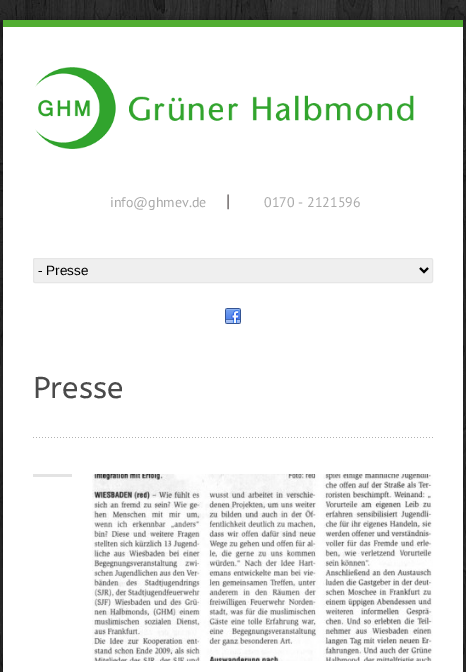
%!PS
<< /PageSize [466 672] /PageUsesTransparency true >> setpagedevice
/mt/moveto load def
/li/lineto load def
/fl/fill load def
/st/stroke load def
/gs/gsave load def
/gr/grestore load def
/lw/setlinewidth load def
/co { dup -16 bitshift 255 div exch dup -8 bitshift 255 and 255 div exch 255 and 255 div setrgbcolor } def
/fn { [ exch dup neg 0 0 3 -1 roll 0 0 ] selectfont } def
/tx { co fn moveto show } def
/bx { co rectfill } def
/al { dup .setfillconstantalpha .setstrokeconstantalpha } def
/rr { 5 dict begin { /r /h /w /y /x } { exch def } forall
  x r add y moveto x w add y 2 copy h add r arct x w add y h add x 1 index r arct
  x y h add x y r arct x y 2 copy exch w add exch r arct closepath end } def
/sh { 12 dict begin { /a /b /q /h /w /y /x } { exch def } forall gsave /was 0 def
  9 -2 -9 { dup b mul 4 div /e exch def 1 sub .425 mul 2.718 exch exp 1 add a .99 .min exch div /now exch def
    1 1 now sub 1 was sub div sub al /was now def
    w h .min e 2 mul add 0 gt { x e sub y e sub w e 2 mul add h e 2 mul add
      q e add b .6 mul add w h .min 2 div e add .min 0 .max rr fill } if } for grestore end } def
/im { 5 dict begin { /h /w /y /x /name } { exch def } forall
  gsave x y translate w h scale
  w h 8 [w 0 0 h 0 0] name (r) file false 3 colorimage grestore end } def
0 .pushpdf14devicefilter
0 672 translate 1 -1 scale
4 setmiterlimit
0 0 466 672 16#FFFFFF bx
(media/1.raw) 0 0 466 672 im
16#000000 co
3 20 460 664 0 4 .4 sh
3 20 460 7 16#52AE32 bx
3 27 460 645 16#FFFFFF bx
(media/2.raw) 35 67 379 82 im
16#EFEFEF co
33.5 258.5 399 24 1.5 rr gs fl gr
16#E6E6E6 co
st
16#000000 co
2 lw
420 268 mt 424 272 li 428 268 li st
(media/3.raw) 225 308 16 16 im
(media/4.raw) 33 437 400 1 im
33 474 39 3 16#E3E3E3 bx
(media/5.raw) 92 474 341 187 im
(info@ghmev.de) 110 207 /PTSans-Regular 14 16#AAAAAA tx
(|) 226 207 /PTSans-Regular 18 16#575151 tx
(0170 - 2121596) 264 207 /PTSans-Regular 14 16#AAAAAA tx
(- Presse) 38 275 /LiberationSans-Regular 13.5 16#000000 tx
(Presse) 33 398 /ABeeZee-Regular 30 16#4A4A4A tx
.poppdf14devicefilter showpage
